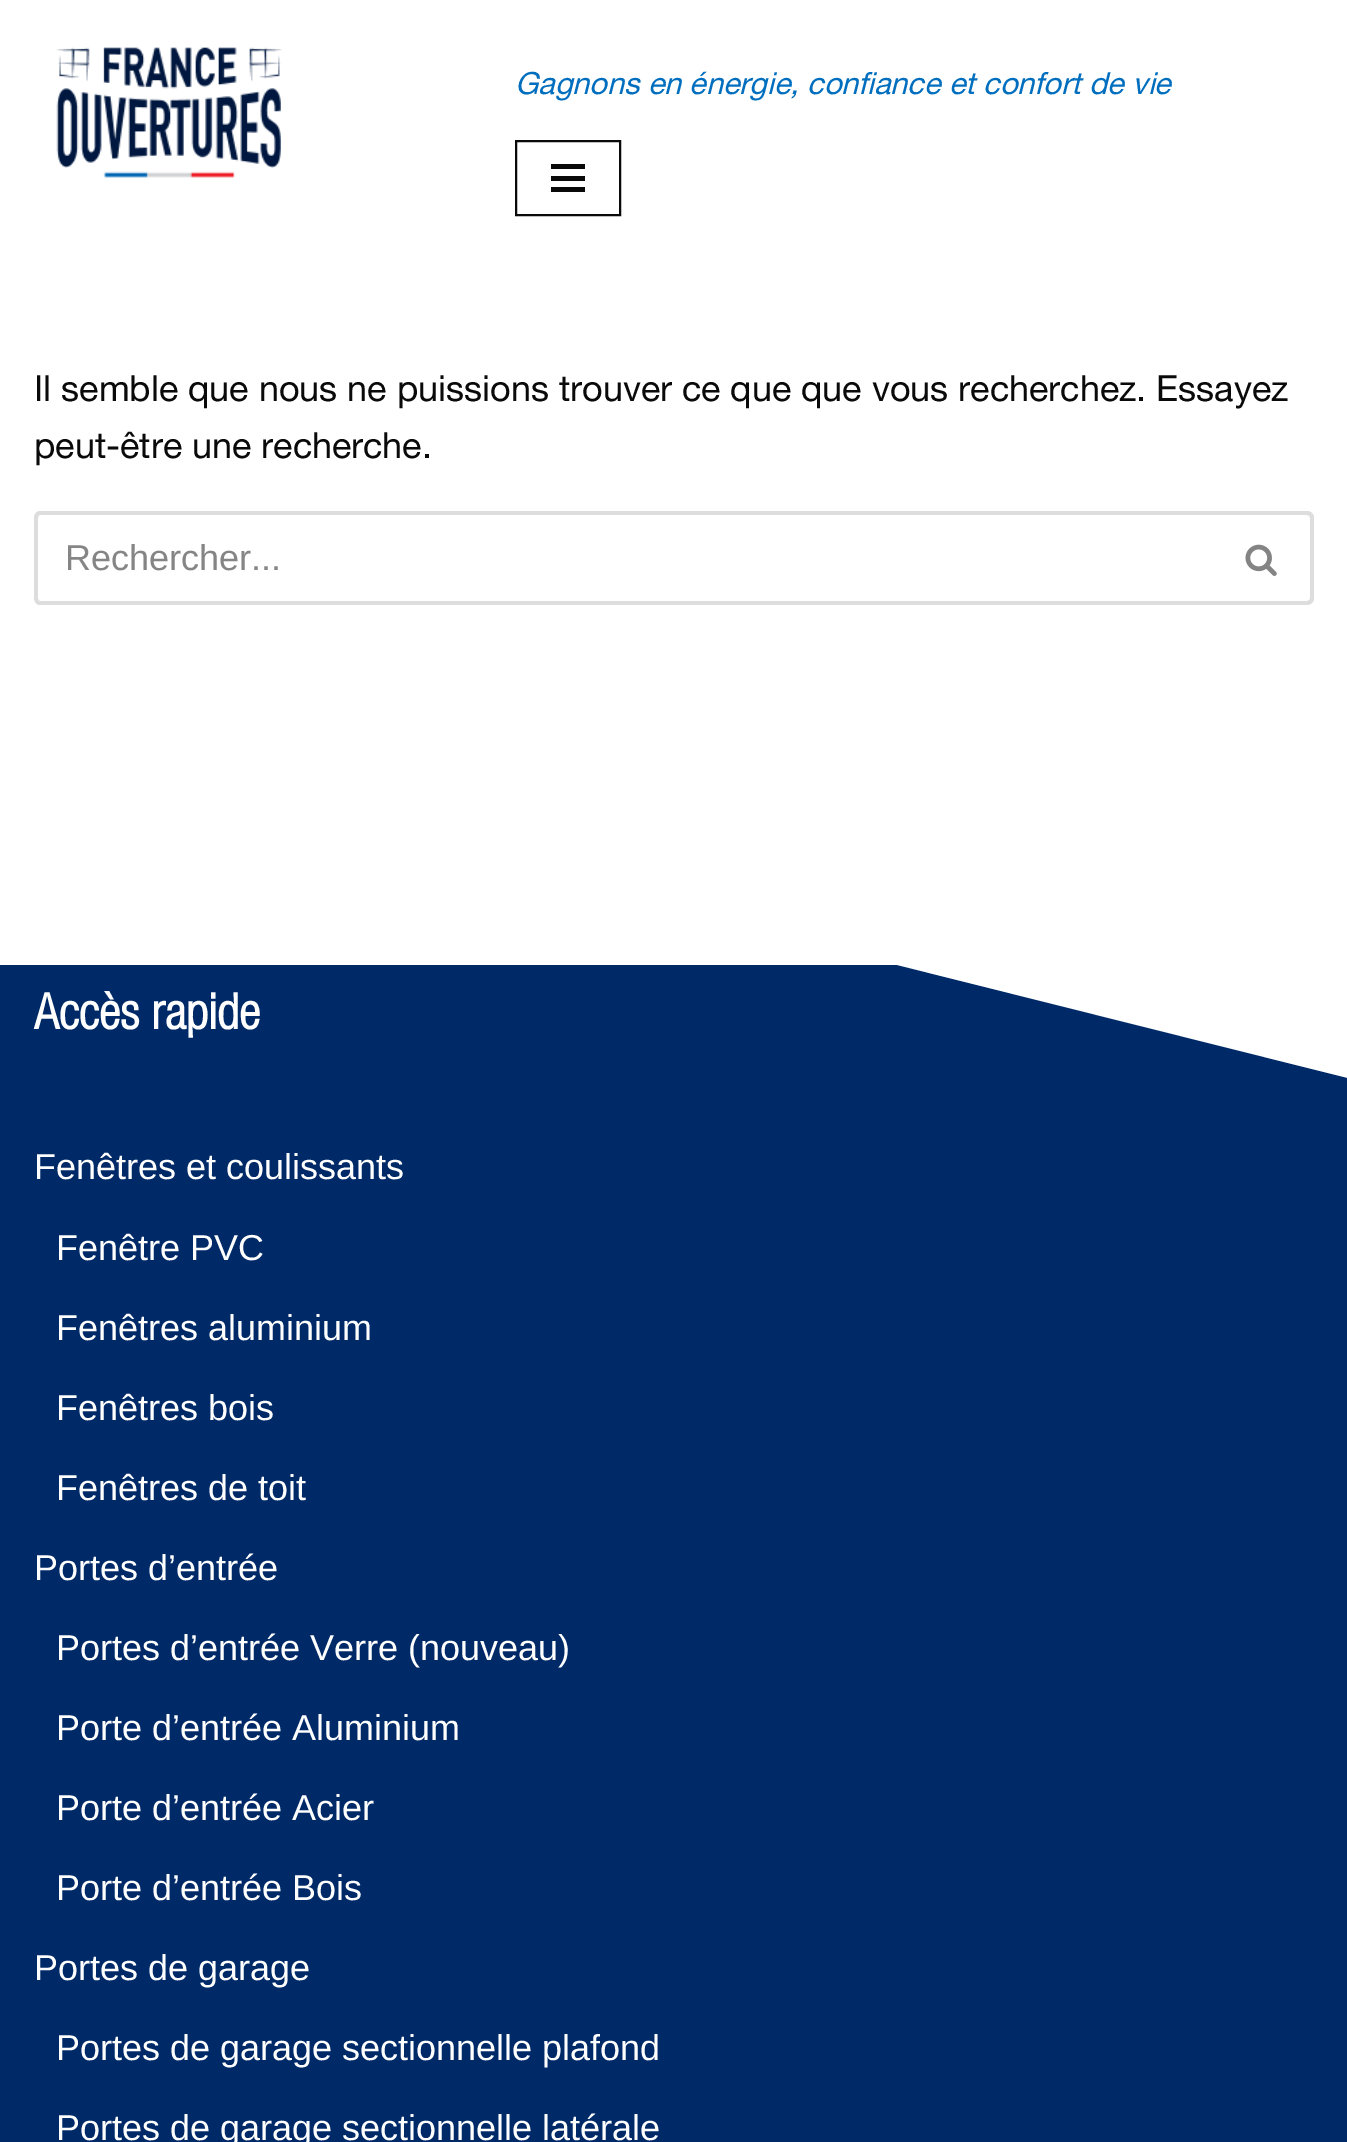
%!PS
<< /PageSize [1347 2142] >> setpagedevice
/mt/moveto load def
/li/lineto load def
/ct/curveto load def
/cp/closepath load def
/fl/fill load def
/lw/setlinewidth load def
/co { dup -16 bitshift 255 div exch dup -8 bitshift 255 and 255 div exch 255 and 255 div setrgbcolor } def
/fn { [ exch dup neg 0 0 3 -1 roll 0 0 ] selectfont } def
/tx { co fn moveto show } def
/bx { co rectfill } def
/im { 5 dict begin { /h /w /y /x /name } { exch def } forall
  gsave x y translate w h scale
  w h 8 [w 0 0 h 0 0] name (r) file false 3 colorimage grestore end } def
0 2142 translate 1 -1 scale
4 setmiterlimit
0 0 1347 2142 16#FFFFFF bx
(media/1.raw) 56 47 226 131 im
16#0A0A0A co
2 lw
516 141 104 74 rectstroke
551 164 34 5 16#0A0A0A bx
551 176 34 5 16#0A0A0A bx
551 187 34 5 16#0A0A0A bx
16#DDDDDD co
40 511 mt 1213 511 li 1213 605 li 40 605 li 37 605 34 602 34 598 ct 34 518 li 34 514 37 511 40 511 ct cp 40 515 mt 1213 515 li 1213 601 li 40 601 li 39 601 38 600 38 598 ct 38 518 li 38 516 39 515 40 515 ct cp eofill
1213 511 mt 1307 511 li 1311 511 1314 514 1314 518 ct 1314 598 li 1314 602 1311 605 1307 605 ct 1213 605 li cp 1213 515 mt 1307 515 li 1308 515 1310 516 1310 518 ct 1310 598 li 1310 600 1308 601 1307 601 ct 1213 601 li cp eofill
(media/2.raw) 1245 544 32 32 im
0 965 1347 1177 16#002A67 bx
16#FFFFFF co
0 740 mt 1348 740 li 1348 1078 li cp fl
(Gagnons en énergie, confiance et confort de vie) 515 94 /HelveticaNeue-Italic 30.6 16#006EBE tx
(Il semble que nous ne puissions trouver ce que que vous recherchez. Essayez) 34 401 /HelveticaNeue-Regular 36 16#0A0A0A tx
(peut-être une recherche.) 34 458 /HelveticaNeue-Regular 36 16#0A0A0A tx
(Rechercher...) 65 570 /LiberationSans-Regular 36 16#858585 tx
(Accès rapide) 34 1029 /HelveticaNeue-Bold 49.5 16#FFFFFF tx
(Fenêtres et coulissants) 34 1179 /LiberationSans-Regular 36 16#FFFFFF tx
(Fenêtre PVC) 56 1260 /LiberationSans-Regular 36 16#FFFFFF tx
(Fenêtres aluminium) 56 1340 /LiberationSans-Regular 36 16#FFFFFF tx
(Fenêtres bois) 56 1420 /LiberationSans-Regular 36 16#FFFFFF tx
(Fenêtres de toit) 56 1500 /LiberationSans-Regular 36 16#FFFFFF tx
(Portes d’entrée) 34 1580 /LiberationSans-Regular 36 16#FFFFFF tx
(Portes d’entrée Verre \(nouveau\)) 56 1660 /LiberationSans-Regular 36 16#FFFFFF tx
(Porte d’entrée Aluminium) 56 1740 /LiberationSans-Regular 36 16#FFFFFF tx
(Porte d’entrée Acier) 56 1820 /LiberationSans-Regular 36 16#FFFFFF tx
(Porte d’entrée Bois) 56 1900 /LiberationSans-Regular 36 16#FFFFFF tx
(Portes de garage) 34 1980 /LiberationSans-Regular 36 16#FFFFFF tx
(Portes de garage sectionnelle plafond) 56 2060 /LiberationSans-Regular 36 16#FFFFFF tx
(Portes de garage sectionnelle latérale) 56 2140 /LiberationSans-Regular 36 16#FFFFFF tx
showpage
